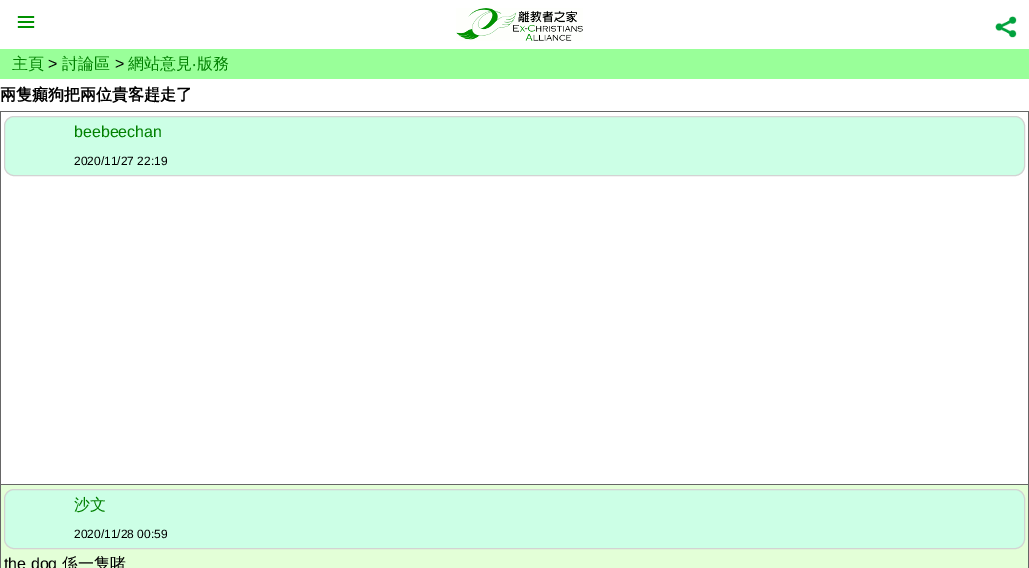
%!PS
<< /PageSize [1029 568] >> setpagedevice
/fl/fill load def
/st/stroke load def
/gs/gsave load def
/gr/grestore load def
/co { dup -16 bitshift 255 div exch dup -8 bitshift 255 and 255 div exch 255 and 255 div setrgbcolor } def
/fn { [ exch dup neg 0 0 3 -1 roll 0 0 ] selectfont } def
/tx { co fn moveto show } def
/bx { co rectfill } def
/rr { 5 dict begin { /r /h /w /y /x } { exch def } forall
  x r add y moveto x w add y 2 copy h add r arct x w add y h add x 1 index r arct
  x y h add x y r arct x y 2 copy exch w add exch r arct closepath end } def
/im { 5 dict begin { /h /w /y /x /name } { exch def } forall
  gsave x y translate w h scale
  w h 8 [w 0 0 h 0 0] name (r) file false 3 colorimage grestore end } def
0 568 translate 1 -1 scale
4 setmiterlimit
0 0 1029 568 16#FFFFFF bx
(media/1.raw) 10 5 34 34 im
(media/2.raw) 456 8 127 33 im
(media/3.raw) 995 16 22 22 im
0 49 1029 30 16#99FF99 bx
0 111 1029 1 16#666666 bx
0 484 1029 1 16#666666 bx
1028 484 1 84 16#666666 bx
1028 111 1 374 16#666666 bx
0 484 1 84 16#666666 bx
0 111 1 374 16#666666 bx
16#CCFFE6 co
4.5 116.5 1020 59 9.5 rr gs fl gr
16#D3D3D3 co
st
1 485 1027 83 16#E3FFD7 bx
16#CCFFE6 co
4.5 489.5 1020 59 9.5 rr gs fl gr
16#D3D3D3 co
st
(主頁) 12 69 /WenQuanYiZenHei-Medium 16 16#008000 tx
(>) 48 69 /LiberationSans-Regular 16 16#000000 tx
(討論區) 62 69 /WenQuanYiZenHei-Medium 16 16#008000 tx
(>) 115 69 /LiberationSans-Regular 16 16#000000 tx
(網站意見) 128 69 /WenQuanYiZenHei-Medium 16 16#008000 tx
(‧) 192 69 /NotoSans-Regular 16 16#008000 tx
(版務) 197 69 /WenQuanYiZenHei-Medium 16 16#008000 tx
(兩隻癲狗把兩位貴客趕走了) 0 100 /WenQuanYiZenHei-Bold 16 16#000000 tx
(beebeechan) 74 137 /LiberationSans-Regular 16 16#008000 tx
(2020/11/27 22:19) 74 165 /LiberationSans-Regular 12 16#000000 tx
(沙文) 74 510 /WenQuanYiZenHei-Medium 16 16#008000 tx
(2020/11/28 00:59) 74 538 /LiberationSans-Regular 12 16#000000 tx
(the dog) 4 569 /LiberationSans-Regular 16 16#000000 tx
(係一隻啫) 62 569 /WenQuanYiZenHei-Medium 16 16#000000 tx
showpage
